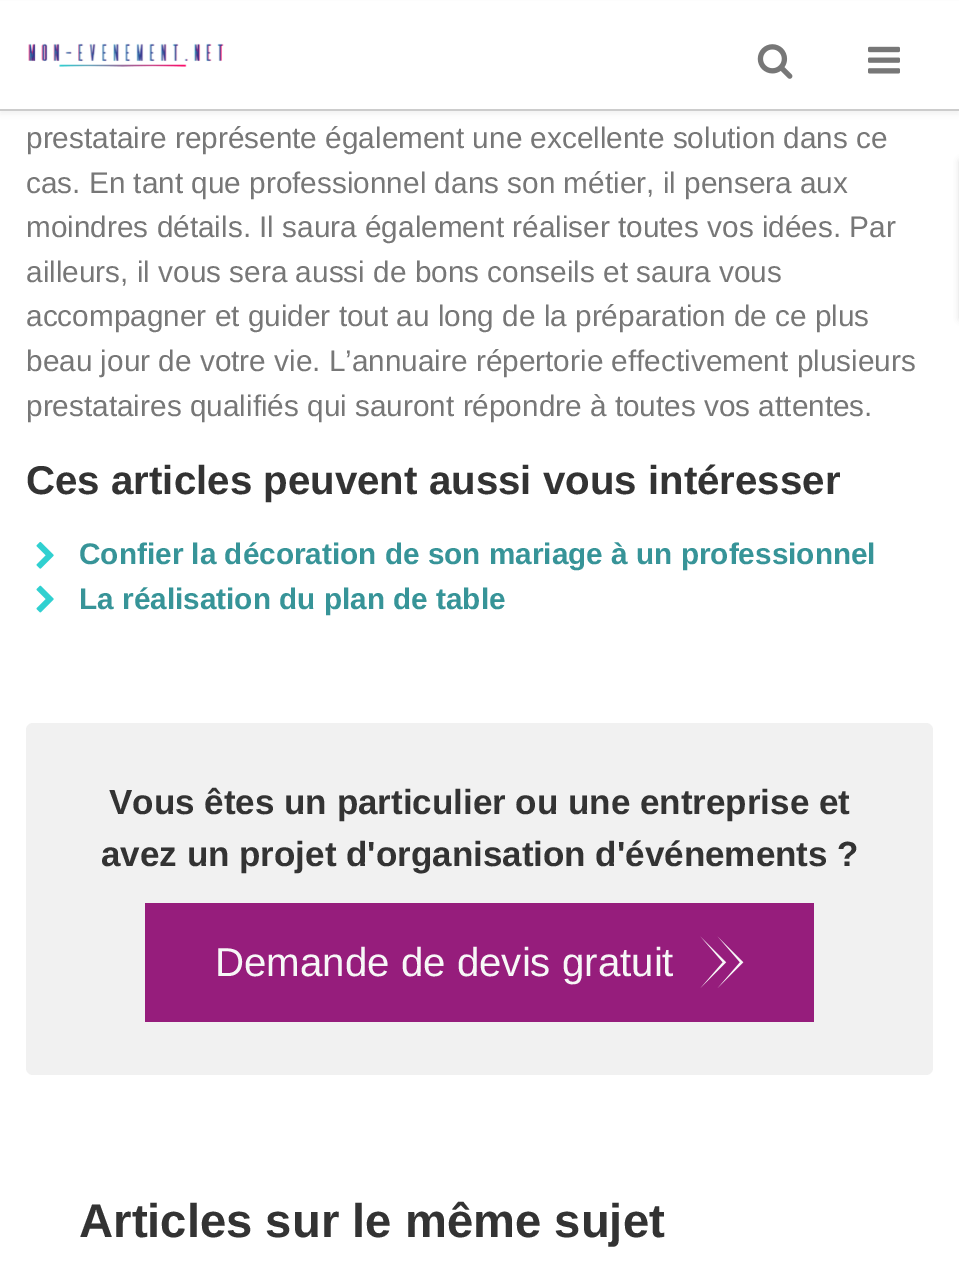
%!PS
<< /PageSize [959 1262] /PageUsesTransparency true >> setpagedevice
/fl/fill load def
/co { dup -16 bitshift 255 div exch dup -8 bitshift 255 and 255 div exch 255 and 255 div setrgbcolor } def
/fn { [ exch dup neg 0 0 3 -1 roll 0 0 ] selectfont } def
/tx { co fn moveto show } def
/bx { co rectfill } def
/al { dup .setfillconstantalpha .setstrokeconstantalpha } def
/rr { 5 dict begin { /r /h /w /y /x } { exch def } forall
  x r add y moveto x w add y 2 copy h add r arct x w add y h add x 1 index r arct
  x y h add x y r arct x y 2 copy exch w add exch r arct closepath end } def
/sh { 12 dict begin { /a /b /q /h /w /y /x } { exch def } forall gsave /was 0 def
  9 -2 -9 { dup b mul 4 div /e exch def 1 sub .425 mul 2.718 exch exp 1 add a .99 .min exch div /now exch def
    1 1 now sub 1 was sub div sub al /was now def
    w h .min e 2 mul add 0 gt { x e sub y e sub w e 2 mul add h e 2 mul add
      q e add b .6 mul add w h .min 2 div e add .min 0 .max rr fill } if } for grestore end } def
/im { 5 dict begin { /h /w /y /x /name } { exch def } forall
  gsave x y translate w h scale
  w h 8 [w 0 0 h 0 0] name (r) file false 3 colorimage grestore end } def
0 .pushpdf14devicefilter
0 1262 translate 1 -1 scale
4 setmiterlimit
0 0 959 1262 16#FFFFFF bx
16#000000 co
0 4 959 110 0 3.5 .06 sh
0 1 959 108 16#FFFFFF bx
0 109 959 2 16#CCCCCC bx
(media/1.raw) 28 43 196 24 im
(media/2.raw) 757 44 36 35 im
(media/3.raw) 868 46 32 28 im
16#000000 co
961 161 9 158 0 3.5 .24 sh
(media/4.raw) 36 541 18 28 im
(media/5.raw) 36 585 18 28 im
16#F1F1F1 co
26 723 907 352 7 rr fl
145 903 669 119 16#961D7C bx
(media/6.raw) 700 936 44 52 im
(prestataire représente également une excellente solution dans ce) 26 148 /LiberationSans-Regular 29.75 16#777777 tx
(cas. En tant que professionnel dans son métier, il pensera aux) 26 193 /LiberationSans-Regular 29.75 16#777777 tx
(moindres détails. Il saura également réaliser toutes vos idées. Par) 26 237 /LiberationSans-Regular 29.75 16#777777 tx
(ailleurs, il vous sera aussi de bons conseils et saura vous) 26 282 /LiberationSans-Regular 29.75 16#777777 tx
(accompagner et guider tout au long de la préparation de ce plus) 26 326 /LiberationSans-Regular 29.75 16#777777 tx
(beau jour de votre vie. L’annuaire répertorie effectivement plusieurs) 26 371 /LiberationSans-Regular 29.75 16#777777 tx
(prestataires qualifiés qui sauront répondre à toutes vos attentes.) 26 416 /LiberationSans-Regular 29.75 16#777777 tx
(Ces articles peuvent aussi vous intéresser) 26 494 /LiberationSans-Bold 40.25 16#333333 tx
(Confier la décoration de son mariage à un professionnel) 79 564 /LiberationSans-Bold 29.75 16#379498 tx
(La réalisation du plan de table) 79 609 /LiberationSans-Bold 29.75 16#379498 tx
(Vous êtes un particulier ou une entreprise et) 109 814 /LiberationSans-Bold 35 16#333333 tx
(avez un projet d'organisation d'événements ?) 101 866 /LiberationSans-Bold 35 16#333333 tx
(Demande de devis gratuit) 215 976 /LiberationSans-Regular 40.25 16#F7F7F7 tx
(Articles sur le même sujet) 79 1237 /LiberationSans-Bold 47.25 16#333333 tx
.poppdf14devicefilter showpage
